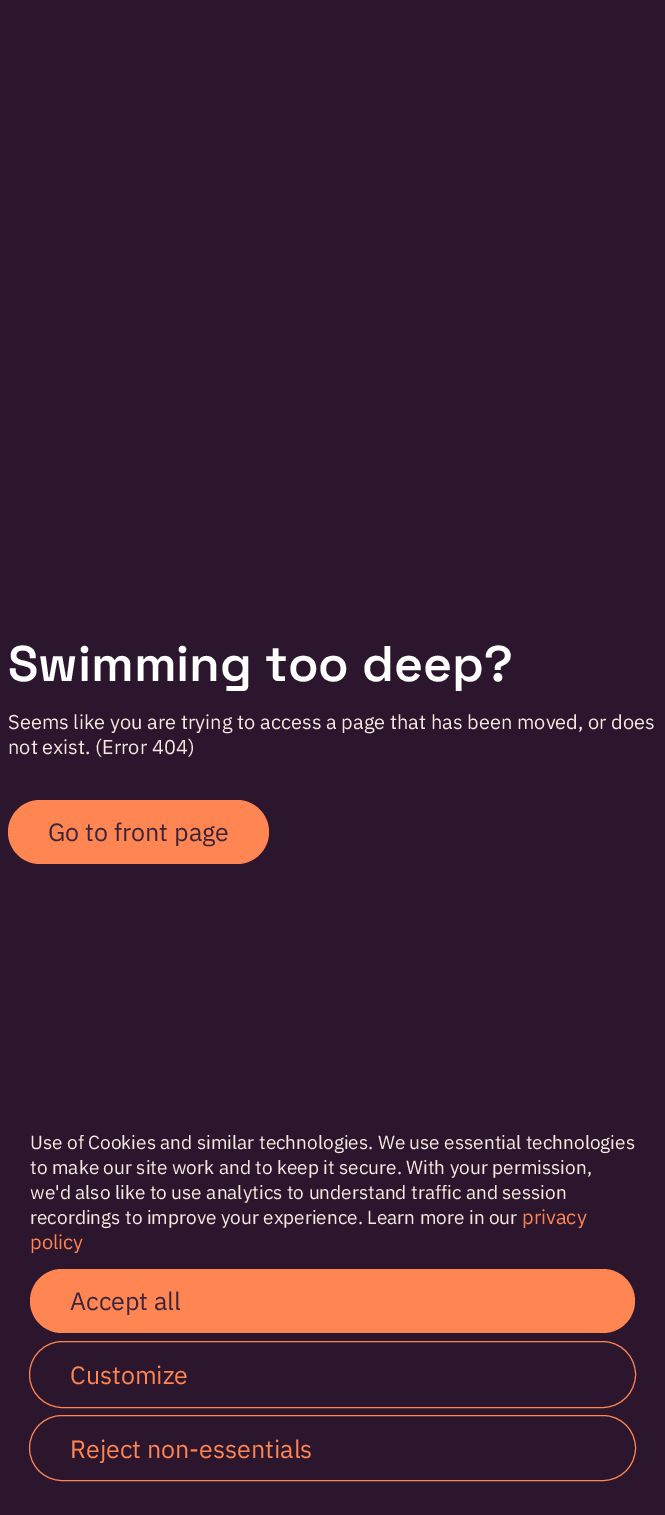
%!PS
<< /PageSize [665 1515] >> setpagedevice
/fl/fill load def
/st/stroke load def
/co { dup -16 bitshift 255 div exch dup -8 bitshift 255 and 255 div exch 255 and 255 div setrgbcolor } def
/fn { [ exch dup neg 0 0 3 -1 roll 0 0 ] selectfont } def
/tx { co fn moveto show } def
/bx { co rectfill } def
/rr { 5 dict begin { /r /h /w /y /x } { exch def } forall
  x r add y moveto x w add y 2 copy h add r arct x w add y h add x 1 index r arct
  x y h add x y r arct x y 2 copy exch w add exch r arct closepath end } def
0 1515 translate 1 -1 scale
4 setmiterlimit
0 0 665 1515 16#2C162D bx
16#FF8552 co
8 800 261 64 32 rr fl
30 1269 605 64 32 rr fl
29.5 1341.5 606 66 33 rr st
29.5 1415.5 606 65 32.5 rr st
(Swimming too deep?) 8 681 /SpaceGrotesk-SemiBold 50 16#FFFFFF tx
(Seems like you are trying to access a page that has been moved, or does) 8 729 /IBMPlexSans-Regular 20 16#F4E9DF tx
(not exist. \(Error 404\)) 8 754 /IBMPlexSans-Regular 20 16#F4E9DF tx
(Go to front page) 48 841 /IBMPlexSans-Regular 25 16#39243A tx
(Use of Cookies and similar technologies. We use essential technologies) 30 1149 /IBMPlexSans-Regular 19 16#F4E9DF tx
(to make our site work and to keep it secure. With your permission,) 30 1174 /IBMPlexSans-Regular 19 16#F4E9DF tx
(we'd also like to use analytics to understand traffic and session) 30 1199 /IBMPlexSans-Regular 19 16#F4E9DF tx
(recordings to improve your experience. Learn more in our) 30 1224 /IBMPlexSans-Regular 19 16#F4E9DF tx
(privacy) 522 1224 /IBMPlexSans-Regular 20 16#FF8552 tx
(policy) 30 1249 /IBMPlexSans-Regular 20 16#FF8552 tx
(Accept all) 70 1310 /IBMPlexSans-Regular 25 16#39243A tx
(Customize) 70 1384 /IBMPlexSans-Regular 25 16#FF8552 tx
(Reject non-essentials) 70 1458 /IBMPlexSans-Regular 25 16#FF8552 tx
showpage
